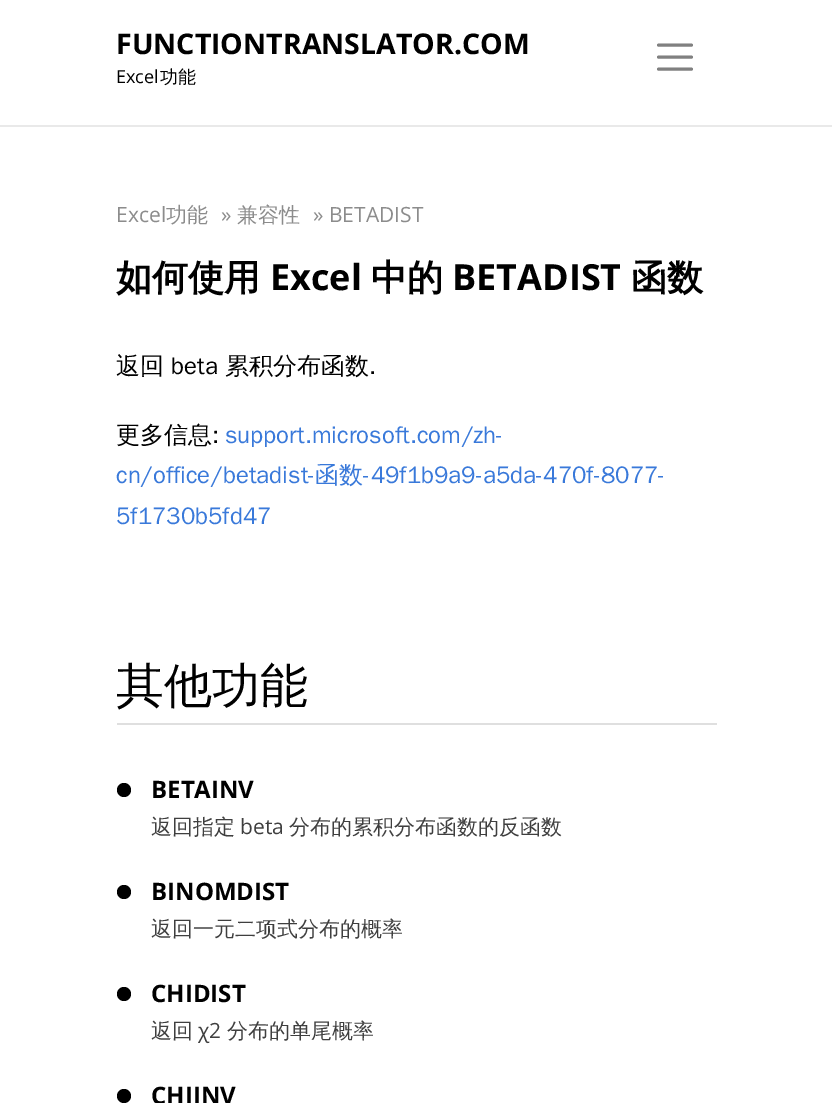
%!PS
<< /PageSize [832 1103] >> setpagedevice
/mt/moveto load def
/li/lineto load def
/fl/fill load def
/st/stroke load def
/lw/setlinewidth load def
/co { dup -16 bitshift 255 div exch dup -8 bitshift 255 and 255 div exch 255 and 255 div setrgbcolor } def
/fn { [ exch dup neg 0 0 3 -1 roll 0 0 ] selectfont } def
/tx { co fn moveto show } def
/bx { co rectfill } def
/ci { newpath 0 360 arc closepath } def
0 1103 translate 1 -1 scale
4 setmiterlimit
0 0 832 1103 16#FFFFFF bx
0 125 832 2 16#E9E9E9 bx
16#808080 co
3 lw
1 setlinecap
658.5 45 mt 691.5 45 li 658.5 57 mt 691.5 57 li 658.5 69 mt 691.5 69 li st
117 723 600 2 16#DFDFDF bx
16#000000 co
124 790 7 ci fl
124 892 7 ci fl
124 994 7 ci fl
124 1096 7 ci fl
(FUNCTIONTRANSLATOR.COM) 116 54 /OpenSans-Bold 28.5 16#000000 tx
(Excel) 116 83 /OpenSans-Regular 18 16#000000 tx
(功能) 160 83 /WenQuanYiZenHei-Medium 18 16#000000 tx
(Excel) 116 222 /OpenSans-Regular 21 16#8C8C8C tx
(功能) 166 222 /WenQuanYiZenHei-Medium 21 16#8C8C8C tx
(») 221 222 /OpenSans-Regular 21 16#8C8C8C tx
(兼容性) 237 222 /WenQuanYiZenHei-Medium 21 16#8C8C8C tx
(» BETADIST) 313 222 /OpenSans-Regular 21 16#8C8C8C tx
(如何使用) 116 290 /WenQuanYiZenHei-Bold 36 16#000000 tx
(Excel) 270 290 /OpenSans-Bold 36 16#000000 tx
(中的) 371 290 /WenQuanYiZenHei-Bold 36 16#000000 tx
(BETADIST) 452 290 /OpenSans-Bold 36 16#000000 tx
(函数) 631 290 /WenQuanYiZenHei-Bold 36 16#000000 tx
(返回 beta 累积分布函数.) 116 374 /WenQuanYiZenHei-Medium 24 16#000000 tx
(更多信息:) 116 443 /WenQuanYiZenHei-Medium 24 16#000000 tx
(support.microsoft.com/zh-) 225 443 /WenQuanYiZenHei-Medium 24 16#3979DA tx
(cn/office/betadist-函数-49f1b9a9-a5da-470f-8077-) 116 483 /WenQuanYiZenHei-Medium 24 16#3979DA tx
(5f1730b5fd47) 116 524 /WenQuanYiZenHei-Medium 24 16#3979DA tx
(其他功能) 116 702 /WenQuanYiZenHei-Medium 48 16#000000 tx
(BETAINV) 151 798 /OpenSans-Bold 24 16#000000 tx
(返回指定) 151 834 /WenQuanYiZenHei-Medium 21 16#3F3F3F tx
(beta) 240 834 /OpenSans-Regular 21 16#3F3F3F tx
(分布的累积分布函数的反函数) 289 834 /WenQuanYiZenHei-Medium 21 16#3F3F3F tx
(BINOMDIST) 151 900 /OpenSans-Bold 24 16#000000 tx
(返回一元二项式分布的概率) 151 936 /WenQuanYiZenHei-Medium 21 16#3F3F3F tx
(CHIDIST) 151 1002 /OpenSans-Bold 24 16#000000 tx
(返回) 151 1038 /WenQuanYiZenHei-Medium 21 16#3F3F3F tx
(χ2) 198 1038 /OpenSans-Regular 21 16#3F3F3F tx
(分布的单尾概率) 227 1038 /WenQuanYiZenHei-Medium 21 16#3F3F3F tx
(CHIINV) 151 1104 /OpenSans-Bold 24 16#000000 tx
showpage
